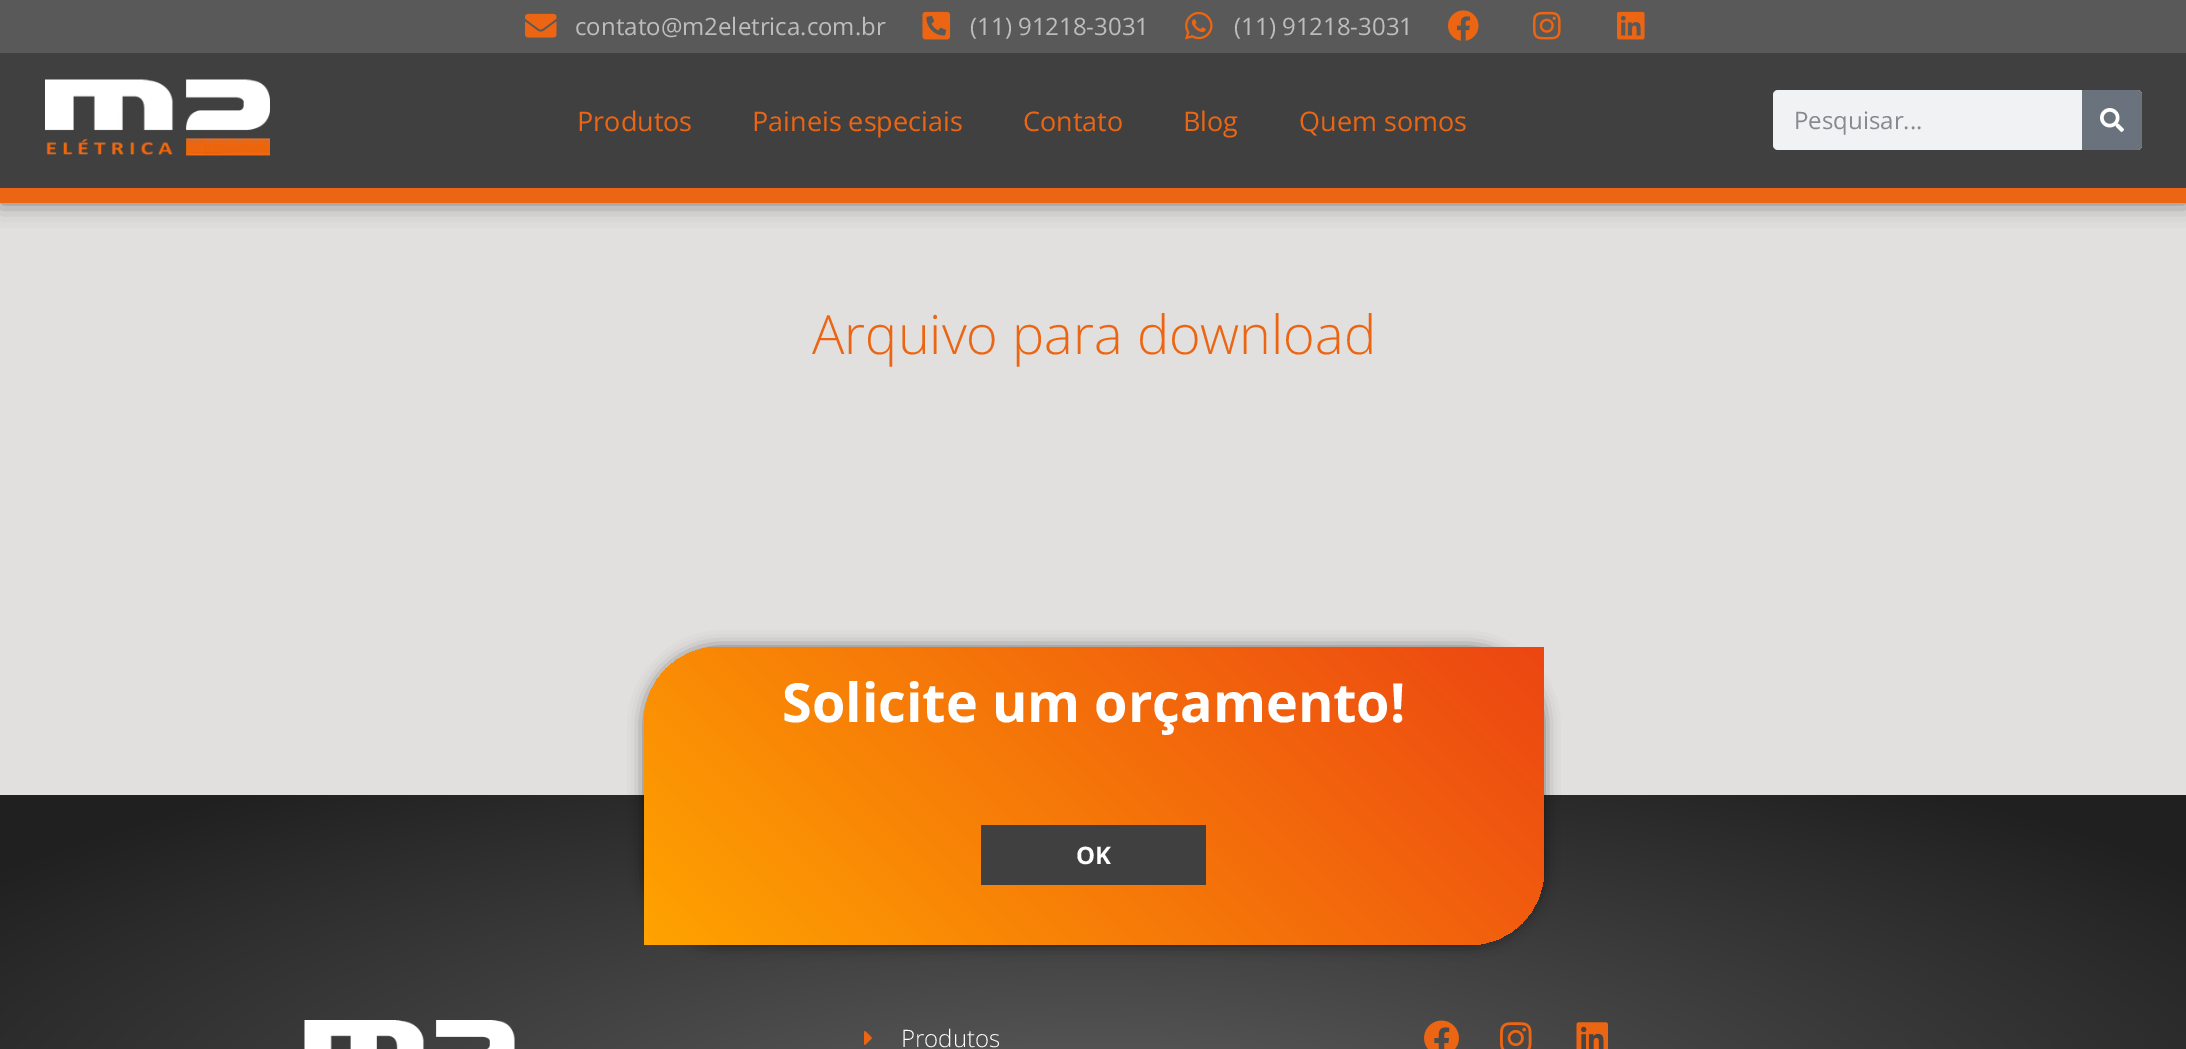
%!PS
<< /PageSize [2186 1049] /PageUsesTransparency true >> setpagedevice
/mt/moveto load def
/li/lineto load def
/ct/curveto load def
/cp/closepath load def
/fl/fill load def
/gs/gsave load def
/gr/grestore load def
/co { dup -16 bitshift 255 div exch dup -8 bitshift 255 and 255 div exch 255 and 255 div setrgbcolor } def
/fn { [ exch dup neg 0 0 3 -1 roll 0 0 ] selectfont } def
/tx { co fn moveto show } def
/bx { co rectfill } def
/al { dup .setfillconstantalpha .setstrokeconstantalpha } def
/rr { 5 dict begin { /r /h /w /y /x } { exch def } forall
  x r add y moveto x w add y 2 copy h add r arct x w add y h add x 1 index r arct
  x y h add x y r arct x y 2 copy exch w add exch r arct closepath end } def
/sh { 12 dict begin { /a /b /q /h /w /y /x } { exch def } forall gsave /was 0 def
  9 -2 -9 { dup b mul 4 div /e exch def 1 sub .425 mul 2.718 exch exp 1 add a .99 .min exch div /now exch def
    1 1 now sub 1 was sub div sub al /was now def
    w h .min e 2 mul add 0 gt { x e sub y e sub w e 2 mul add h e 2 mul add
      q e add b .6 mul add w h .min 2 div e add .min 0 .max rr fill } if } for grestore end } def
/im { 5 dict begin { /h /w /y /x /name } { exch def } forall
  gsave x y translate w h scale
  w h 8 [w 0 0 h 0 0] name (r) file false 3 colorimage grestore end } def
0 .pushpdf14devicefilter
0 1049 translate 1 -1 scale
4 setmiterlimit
0 0 2186 1049 16#E2E0DE bx
16#000000 co
0 0 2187 203 0 11 .5 sh
0 53 2186 135 16#404040 bx
0 188 2186 15 16#EC6512 bx
0 0 2186 53 16#595959 bx
(media/1.raw) 525 13 32 25 im
(media/2.raw) 922 11 29 29 im
(media/3.raw) 1185 11 28 29 im
(media/4.raw) 1448 10 31 31 im
(media/5.raw) 1533 11 28 29 im
(media/6.raw) 1617 11 28 29 im
(media/7.raw) 45 79 225 77 im
16#F1F2F3 co
1773 90 369 60 5 rr fl
16#69727D co
2082 90 mt 2137 90 li 2140 90 2142 92 2142 95 ct 2142 145 li 2142 148 2140 150 2137 150 ct 2082 150 li cp fl
(media/8.raw) 2100 108 24 24 im
gs 0 795 mt 2186 795 li 2186 1049 li 0 1049 li cp clip newpath 1094 1136 translate 1546 483 scale
<< /ShadingType 3 /ColorSpace /DeviceRGB /Coords [0 0 0 0 0 1] /Extend [true true] /Function << /FunctionType 3 /Domain [0 1] /Functions [<< /FunctionType 2 /Domain [0 1] /C0 [.376 .376 .376] /C1 [.125 .125 .125] /N 1 >> << /FunctionType 2 /Domain [0 1] /C0 [.125 .125 .125] /C1 [.125 .125 .125] /N 1 >>] /Bounds [.9] /Encode [0 1 0 1] >> >> shfill gr
16#000000 co
644 647 900 298 75 7.5 .5 sh
gs 719 647 mt 1544 647 li 1544 870 li 1544 911.5 1510.5 945 1469 945 ct 644 945 li 644 722 li 644 680.5 677.5 647 719 647 ct cp clip newpath
<< /ShadingType 2 /ColorSpace /DeviceRGB /Coords [794 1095 1393 496] /Extend [true true] /Function << /FunctionType 2 /Domain [0 1] /C0 [1 .639 0] /C1 [.925 .275 .071] /N 1 >> >> shfill gr
981 825 225 60 16#404040 bx
(media/9.raw) 304 1020 211 29 im
(media/10.raw) 864 1031 8 14 im
(media/11.raw) 1424 1020 35 29 im
(media/12.raw) 1500 1022 32 27 im
(media/13.raw) 1576 1022 32 27 im
(contato@m2eletrica.com.br) 575 35 /OpenSans-Regular 24 16#BDBDBD tx
(\(11\) 91218-3031) 970 35 /OpenSans-Regular 24 16#BDBDBD tx
(\(11\) 91218-3031) 1234 35 /OpenSans-Regular 24 16#BDBDBD tx
(Produtos) 577 131 /OpenSans-Regular 27 16#EC6512 tx
(Paineis especiais) 752 131 /OpenSans-Regular 27 16#EC6512 tx
(Contato) 1023 131 /OpenSans-Regular 27 16#EC6512 tx
(Blog) 1183 131 /OpenSans-Regular 27 16#EC6512 tx
(Quem somos) 1299 131 /OpenSans-Regular 27 16#EC6512 tx
(Pesquisar...) 1794 129 /OpenSans-Regular 24 16#868A8E tx
(Arquivo para download) 812 354 /OpenSans-Light 54 16#EC6512 tx
(Solicite um orçamento!) 782 722 /OpenSans-Bold 54 16#FFFFFF tx
(OK) 1076 864 /OpenSans-Bold 24 16#FFFFFF tx
(Produtos) 901 1047 /OpenSans-Light 24 16#FFFFFF tx
.poppdf14devicefilter showpage
